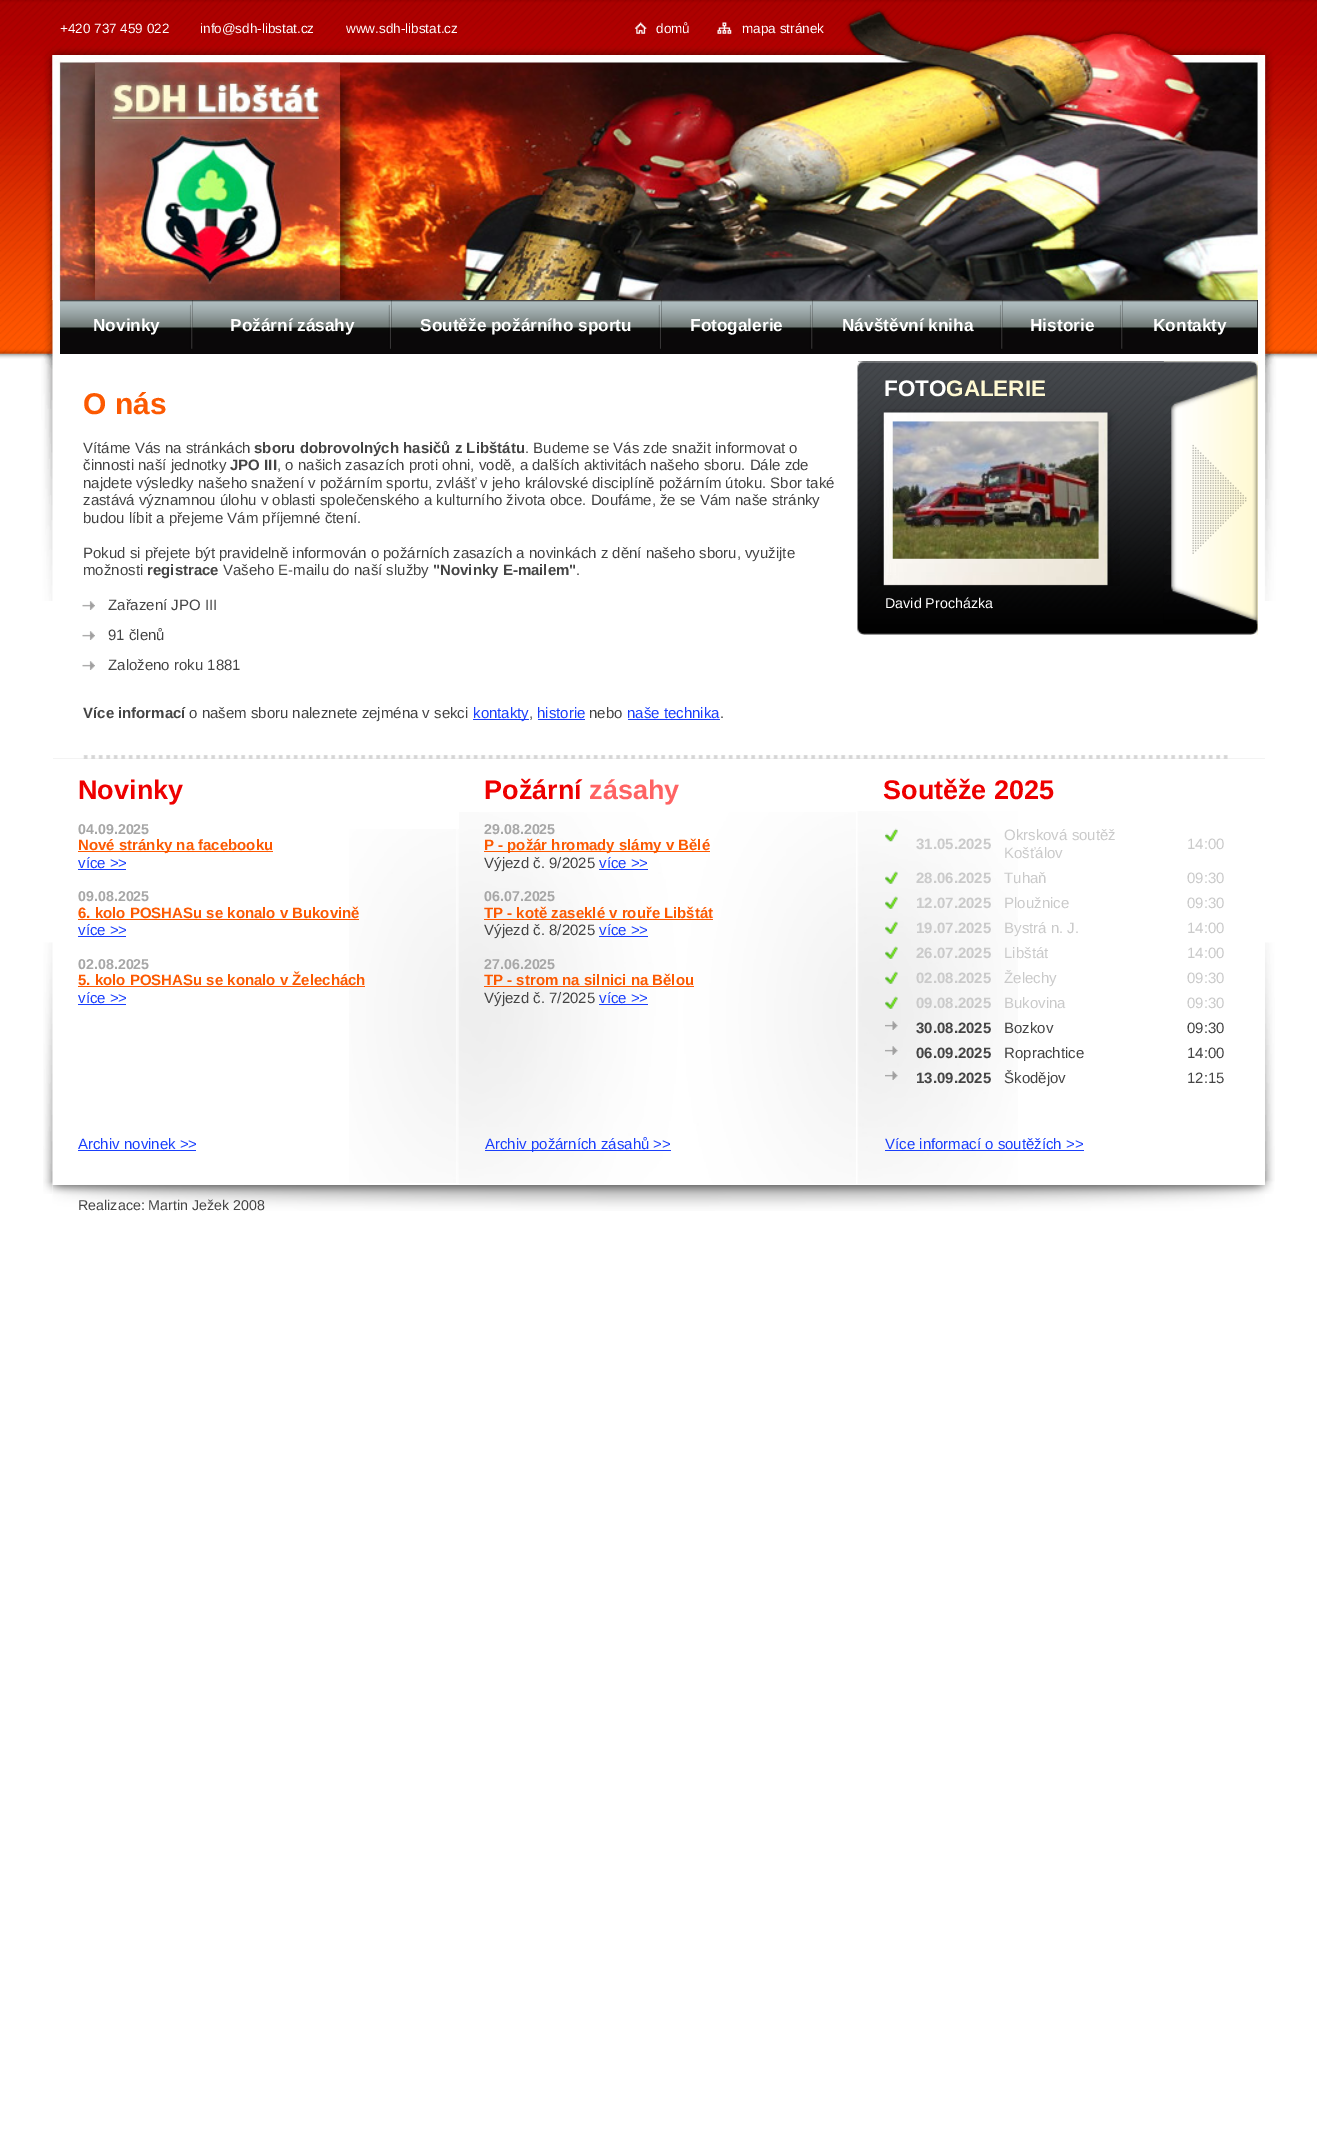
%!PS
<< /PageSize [1317 2156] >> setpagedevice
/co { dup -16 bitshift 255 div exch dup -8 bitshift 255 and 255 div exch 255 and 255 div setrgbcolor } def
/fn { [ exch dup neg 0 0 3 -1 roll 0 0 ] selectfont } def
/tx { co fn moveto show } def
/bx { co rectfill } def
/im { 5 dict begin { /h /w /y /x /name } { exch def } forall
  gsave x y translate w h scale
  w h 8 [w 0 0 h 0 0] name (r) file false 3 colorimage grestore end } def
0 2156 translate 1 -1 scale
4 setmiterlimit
0 0 1317 2156 16#FFFFFF bx
(media/1.raw) 0 0 1317 601 im
1264 300 1 205 16#FFFFFF bx
(media/2.raw) 52 0 1213 55 im
(media/3.raw) 634 22 13 12 im
(media/4.raw) 717 22 15 12 im
(media/5.raw) 52 55 1213 245 im
(media/6.raw) 95 62 245 238 im
60 300 133 54 16#0A0809 bx
(media/7.raw) 60 300 133 49 im
193 353 198 1 16#0A0809 bx
(media/8.raw) 192 300 199 54 im
391 300 867 54 16#0A0809 bx
(media/9.raw) 391 300 270 54 im
(media/10.raw) 661 300 152 49 im
(media/11.raw) 812 300 191 49 im
(media/12.raw) 1002 300 121 49 im
(media/13.raw) 1122 300 136 49 im
(media/14.raw) 82 601 13 9 im
(media/14.raw) 82 631 13 9 im
(media/14.raw) 82 661 13 9 im
473 719 56 1 16#1A3FFC bx
538 719 47 1 16#1A3FFC bx
628 719 92 1 16#1A3FFC bx
(media/15.raw) 857 361 307 274 im
1164 361 94 274 16#FFF9D2 bx
(media/16.raw) 1163 361 95 274 im
(media/17.raw) 870 409 250 177 im
(media/18.raw) 892 421 207 138 im
(media/19.raw) 53 755 1212 4 im
(media/20.raw) 349 829 110 354 im
78 851 195 1 16#FD5800 bx
78 869 48 1 16#1A3FFC bx
78 919 281 1 16#FD5800 bx
78 936 48 1 16#1A3FFC bx
78 986 287 1 16#FD5800 bx
78 1004 48 1 16#1A3FFC bx
(media/21.raw) 459 812 397 372 im
484 851 226 1 16#FD5800 bx
599 869 49 1 16#1A3FFC bx
484 919 229 1 16#FD5800 bx
599 936 49 1 16#1A3FFC bx
484 986 210 1 16#FD5800 bx
599 1004 49 1 16#1A3FFC bx
(media/22.raw) 857 811 161 373 im
(media/23.raw) 885 828 13 14 im
(media/24.raw) 885 871 13 13 im
(media/25.raw) 885 896 13 13 im
(media/26.raw) 885 921 13 13 im
(media/27.raw) 885 946 13 13 im
(media/28.raw) 885 971 13 13 im
(media/29.raw) 885 996 13 13 im
(media/30.raw) 885 1021 13 9 im
(media/31.raw) 885 1046 13 9 im
(media/32.raw) 885 1071 13 9 im
(media/33.raw) 52 1185 1213 26 im
(media/34.raw) 43 942 10 252 im
78 1150 118 1 16#1A3FFC bx
485 1150 186 1 16#1A3FFC bx
885 1150 199 1 16#1A3FFC bx
(media/35.raw) 1265 942 10 252 im
(+420 737 459 022) 60 33 /LiberationSans-Regular 13.5 16#FFFFFF tx
(info@sdh-libstat.cz) 200 33 /LiberationSans-Regular 13.5 16#FFFFFF tx
(www.sdh-libstat.cz) 346 33 /LiberationSans-Regular 13.5 16#FFFFFF tx
(domů) 656 33 /LiberationSans-Regular 13.5 16#FFFFFF tx
(mapa stránek) 742 33 /LiberationSans-Regular 13.5 16#FFFFFF tx
(Novinky) 93 331 /LiberationSans-Bold 17.25 16#FFFFFF tx
(Požární zásahy) 230 331 /LiberationSans-Bold 17.25 16#FFFFFF tx
(Soutěže požárního sportu) 420 331 /LiberationSans-Bold 17.25 16#FFFFFF tx
(Fotogalerie) 690 331 /LiberationSans-Bold 17.25 16#FFFFFF tx
(Návštěvní kniha) 842 331 /LiberationSans-Bold 17.25 16#FFFFFF tx
(Historie) 1030 331 /LiberationSans-Bold 17.25 16#FFFFFF tx
(Kontakty) 1153 331 /LiberationSans-Bold 17.25 16#FFFFFF tx
(O nás) 83 414 /LiberationSans-Bold 30 16#FC5901 tx
(Vítáme Vás na stránkách) 83 453 /LiberationSans-Regular 15 16#444444 tx
(sboru dobrovolných hasičů z Libštátu) 254 453 /LiberationSans-Bold 15 16#444444 tx
(. Budeme se Vás zde snažit informovat o) 525 453 /LiberationSans-Regular 15 16#444444 tx
(činnosti naší jednotky) 83 470 /LiberationSans-Regular 15 16#444444 tx
(JPO III) 230 470 /LiberationSans-Bold 15 16#444444 tx
(, o našich zasazích proti ohni, vodě, a dalších aktivitách našeho sboru. Dále zde) 277 470 /LiberationSans-Regular 15 16#444444 tx
(najdete výsledky našeho snažení v požárním sportu, zvlášť v jeho královské disciplíně požárním útoku. Sbor také) 83 488 /LiberationSans-Regular 15 16#444444 tx
(zastává významnou úlohu v oblasti společenského a kulturního života obce. Doufáme, že se Vám naše stránky) 83 505 /LiberationSans-Regular 15 16#444444 tx
(budou líbit a přejeme Vám příjemné čtení.) 83 523 /LiberationSans-Regular 15 16#444444 tx
(Pokud si přejete být pravidelně informován o požárních zasazích a novinkách z dění našeho sboru, využijte) 83 558 /LiberationSans-Regular 15 16#444444 tx
(možnosti) 83 575 /LiberationSans-Regular 15 16#444444 tx
(registrace) 147 575 /LiberationSans-Bold 15 16#444444 tx
(Vašeho E-mailu do naší služby) 223 575 /LiberationSans-Regular 15 16#444444 tx
("Novinky E-mailem") 433 575 /LiberationSans-Bold 15 16#444444 tx
(.) 576 575 /LiberationSans-Regular 15 16#444444 tx
(Zařazení JPO III) 108 610 /LiberationSans-Regular 15 16#444444 tx
(91 členů) 108 640 /LiberationSans-Regular 15 16#444444 tx
(Založeno roku 1881) 108 670 /LiberationSans-Regular 15 16#444444 tx
(Více informací) 83 718 /LiberationSans-Bold 15 16#444444 tx
(o našem sboru naleznete zejména v sekci) 189 718 /LiberationSans-Regular 15 16#444444 tx
(kontakty) 473 718 /LiberationSans-Regular 15 16#1A3FFC tx
(,) 529 718 /LiberationSans-Regular 15 16#444444 tx
(historie) 537 718 /LiberationSans-Regular 15 16#1A3FFC tx
(nebo) 589 718 /LiberationSans-Regular 15 16#444444 tx
(naše technika) 627 718 /LiberationSans-Regular 15 16#1A3FFC tx
(.) 720 718 /LiberationSans-Regular 15 16#444444 tx
(FOTO) 884 396 /LiberationSans-Bold 22.5 16#FFFFFF tx
(GALERIE) 946 396 /LiberationSans-Bold 22.5 16#FFF9D2 tx
(David Procházka) 885 608 /LiberationSans-Regular 14.25 16#FFFFFF tx
(Novinky) 78 799 /LiberationSans-Bold 27 16#EE0000 tx
(04.09.2025) 78 834 /LiberationSans-Bold 14.25 16#A6A6A6 tx
(Nové stránky na facebooku) 78 850 /LiberationSans-Bold 15 16#FC5901 tx
(více >>) 78 868 /LiberationSans-Regular 15 16#1A3FFC tx
(09.08.2025) 78 901 /LiberationSans-Bold 14.25 16#A6A6A6 tx
(6. kolo POSHASu se konalo v Bukovině) 78 918 /LiberationSans-Bold 15 16#FC5901 tx
(více >>) 78 935 /LiberationSans-Regular 15 16#1A3FFC tx
(02.08.2025) 78 969 /LiberationSans-Bold 14.25 16#A6A6A6 tx
(5. kolo POSHASu se konalo v Želechách) 78 985 /LiberationSans-Bold 15 16#FC5901 tx
(více >>) 78 1003 /LiberationSans-Regular 15 16#1A3FFC tx
(Požární) 484 799 /LiberationSans-Bold 27 16#EE0000 tx
(zásahy) 589 799 /LiberationSans-Bold 27 16#FF6363 tx
(29.08.2025) 484 834 /LiberationSans-Bold 14.25 16#A6A6A6 tx
(P - požár hromady slámy v Bělé) 484 850 /LiberationSans-Bold 15 16#FC5901 tx
(Výjezd č. 9/2025) 484 868 /LiberationSans-Regular 15 16#444444 tx
(více >>) 599 868 /LiberationSans-Regular 15 16#1A3FFC tx
(06.07.2025) 484 901 /LiberationSans-Bold 14.25 16#A6A6A6 tx
(TP - kotě zaseklé v rouře Libštát) 484 918 /LiberationSans-Bold 15 16#FC5901 tx
(Výjezd č. 8/2025) 484 935 /LiberationSans-Regular 15 16#444444 tx
(více >>) 599 935 /LiberationSans-Regular 15 16#1A3FFC tx
(27.06.2025) 484 969 /LiberationSans-Bold 14.25 16#A6A6A6 tx
(TP - strom na silnici na Bělou) 484 985 /LiberationSans-Bold 15 16#FC5901 tx
(Výjezd č. 7/2025) 484 1003 /LiberationSans-Regular 15 16#444444 tx
(více >>) 599 1003 /LiberationSans-Regular 15 16#1A3FFC tx
(Soutěže 2025) 883 799 /LiberationSans-Bold 27 16#EE0000 tx
(31.05.2025) 916 849 /LiberationSans-Bold 15 16#CACACA tx
(Okrsková soutěž) 1004 840 /LiberationSans-Regular 15 16#CACACA tx
(Košťálov) 1004 858 /LiberationSans-Regular 15 16#CACACA tx
(14:00) 1187 849 /LiberationSans-Regular 15 16#CACACA tx
(28.06.2025) 916 883 /LiberationSans-Bold 15 16#CACACA tx
(Tuhaň) 1004 883 /LiberationSans-Regular 15 16#CACACA tx
(09:30) 1187 883 /LiberationSans-Regular 15 16#CACACA tx
(12.07.2025) 916 908 /LiberationSans-Bold 15 16#CACACA tx
(Ploužnice) 1004 908 /LiberationSans-Regular 15 16#CACACA tx
(09:30) 1187 908 /LiberationSans-Regular 15 16#CACACA tx
(19.07.2025) 916 933 /LiberationSans-Bold 15 16#CACACA tx
(Bystrá n. J.) 1004 933 /LiberationSans-Regular 15 16#CACACA tx
(14:00) 1187 933 /LiberationSans-Regular 15 16#CACACA tx
(26.07.2025) 916 958 /LiberationSans-Bold 15 16#CACACA tx
(Libštát) 1004 958 /LiberationSans-Regular 15 16#CACACA tx
(14:00) 1187 958 /LiberationSans-Regular 15 16#CACACA tx
(02.08.2025) 916 983 /LiberationSans-Bold 15 16#CACACA tx
(Želechy) 1004 983 /LiberationSans-Regular 15 16#CACACA tx
(09:30) 1187 983 /LiberationSans-Regular 15 16#CACACA tx
(09.08.2025) 916 1008 /LiberationSans-Bold 15 16#CACACA tx
(Bukovina) 1004 1008 /LiberationSans-Regular 15 16#CACACA tx
(09:30) 1187 1008 /LiberationSans-Regular 15 16#CACACA tx
(30.08.2025) 916 1033 /LiberationSans-Bold 15 16#444444 tx
(Bozkov) 1004 1033 /LiberationSans-Regular 15 16#444444 tx
(09:30) 1187 1033 /LiberationSans-Regular 15 16#444444 tx
(06.09.2025) 916 1058 /LiberationSans-Bold 15 16#444444 tx
(Roprachtice) 1004 1058 /LiberationSans-Regular 15 16#444444 tx
(14:00) 1187 1058 /LiberationSans-Regular 15 16#444444 tx
(13.09.2025) 916 1083 /LiberationSans-Bold 15 16#444444 tx
(Škodějov) 1004 1083 /LiberationSans-Regular 15 16#444444 tx
(12:15) 1187 1083 /LiberationSans-Regular 15 16#444444 tx
(Archiv novinek >>) 78 1149 /LiberationSans-Regular 15 16#1A3FFC tx
(Archiv požárních zásahů >>) 485 1149 /LiberationSans-Regular 15 16#1A3FFC tx
(Více informací o soutěžích >>) 885 1149 /LiberationSans-Regular 15 16#1A3FFC tx
(Realizace: Martin Ježek 2008) 78 1210 /LiberationSans-Regular 14.25 16#444444 tx
showpage
